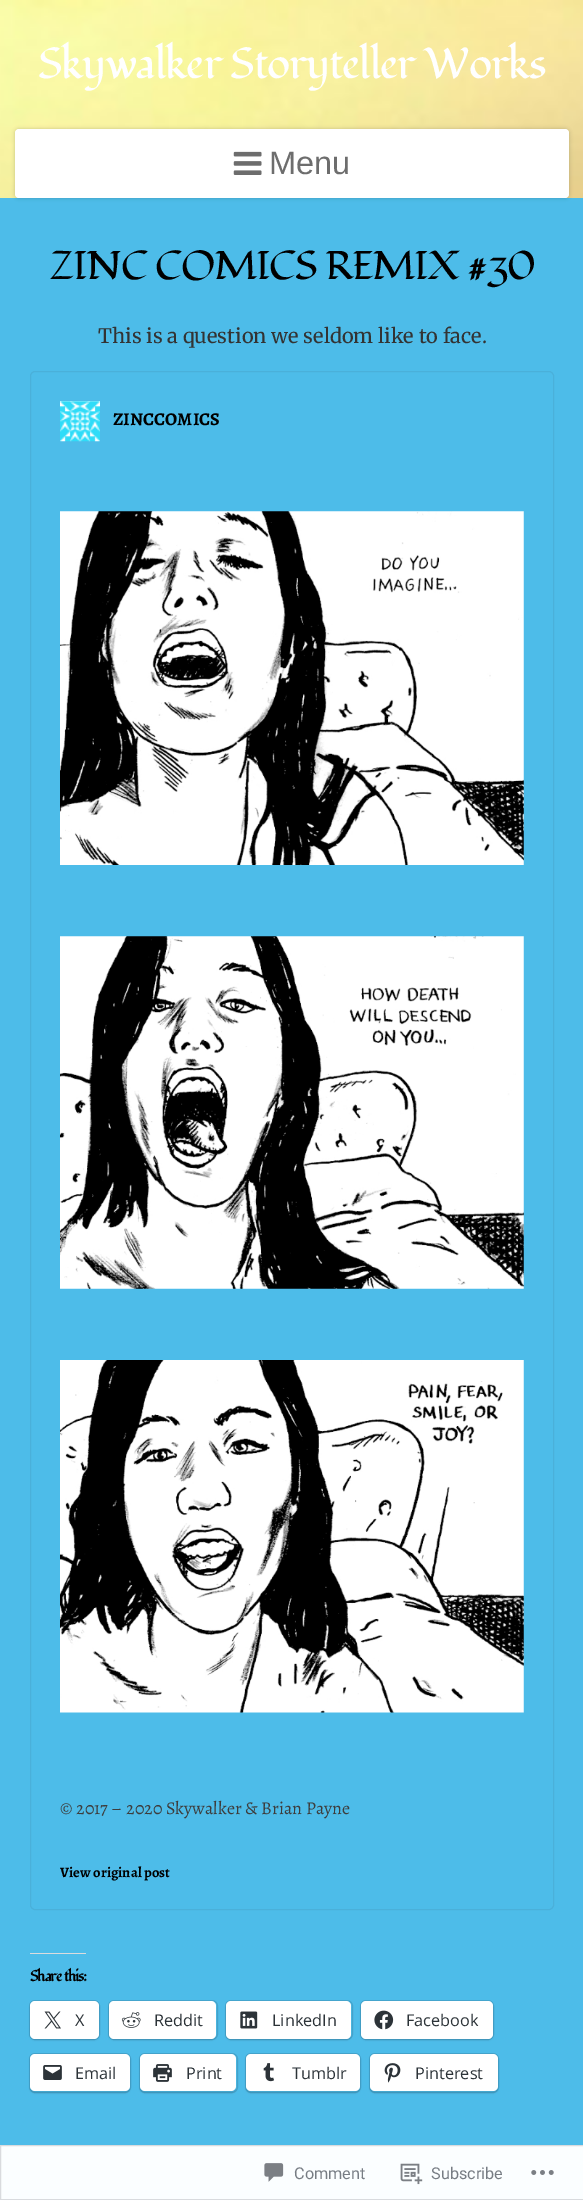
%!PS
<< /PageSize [583 2200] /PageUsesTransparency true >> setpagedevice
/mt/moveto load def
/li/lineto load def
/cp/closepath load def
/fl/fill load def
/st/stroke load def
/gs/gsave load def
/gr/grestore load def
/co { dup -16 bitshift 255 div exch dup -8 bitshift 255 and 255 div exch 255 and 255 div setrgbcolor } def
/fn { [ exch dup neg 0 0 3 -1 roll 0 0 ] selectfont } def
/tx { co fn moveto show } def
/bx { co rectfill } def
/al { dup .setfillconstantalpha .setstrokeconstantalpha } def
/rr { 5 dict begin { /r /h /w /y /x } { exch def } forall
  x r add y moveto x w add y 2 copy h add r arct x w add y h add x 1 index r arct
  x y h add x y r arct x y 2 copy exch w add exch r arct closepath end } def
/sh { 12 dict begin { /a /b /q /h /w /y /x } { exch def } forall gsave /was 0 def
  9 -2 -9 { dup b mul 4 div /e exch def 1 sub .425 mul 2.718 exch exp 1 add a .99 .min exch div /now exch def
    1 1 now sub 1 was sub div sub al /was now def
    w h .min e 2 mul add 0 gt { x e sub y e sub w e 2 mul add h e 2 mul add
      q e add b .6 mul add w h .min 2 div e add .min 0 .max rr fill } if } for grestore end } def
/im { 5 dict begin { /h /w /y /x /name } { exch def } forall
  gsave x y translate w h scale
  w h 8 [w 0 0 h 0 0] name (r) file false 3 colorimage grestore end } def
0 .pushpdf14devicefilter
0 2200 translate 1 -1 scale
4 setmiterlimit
0 0 583 2200 16#4DBCE9 bx
(media/1.raw) 0 0 583 198 im
16#000000 co
15 129 554 69 4 2 .2 sh
16#FFFFFF co
15 129 554 69 4 rr fl
(media/2.raw) 233 151 29 24 im
0.1 al
16#2E4453 co
30.5 371.5 523 1538 4.5 rr st
1 al
(media/3.raw) 60 401 40 41 im
(media/4.raw) 60 511 464 354 im
(media/5.raw) 60 936 464 353 im
(media/6.raw) 60 1360 464 353 im
30 1953 56 1 16#DCDCDE bx
16#44A5CD co
29.5 2000.5 70 39 5.5 rr st
16#000000 co
30 2003 69 37 5 1 .12 sh
16#FFFFFF co
30 2001 69 38 5 rr fl
(media/7.raw) 44 2011 17 18 im
16#44A5CD co
108.5 2000.5 109 39 5.5 rr st
16#000000 co
109 2003 107 37 5 1 .12 sh
16#FFFFFF co
109 2001 107 38 5 rr fl
(media/8.raw) 121 2012 20 16 im
16#44A5CD co
225.5 2000.5 127 39 5.5 rr st
16#000000 co
226 2003 125 37 5 1 .12 sh
16#FFFFFF co
226 2001 125 38 5 rr fl
(media/9.raw) 240 2011 18 18 im
16#44A5CD co
360.5 2000.5 133 39 5.5 rr st
16#000000 co
361 2003 132 37 5 1 .12 sh
16#FFFFFF co
361 2001 132 38 5 rr fl
(media/10.raw) 374 2010 20 20 im
16#44A5CD co
29.5 2053.5 101 39 5.5 rr st
16#000000 co
30 2055 100 38 5 1 .12 sh
16#FFFFFF co
30 2054 100 37 5 rr fl
(media/11.raw) 43 2065 19 15 im
16#44A5CD co
139.5 2053.5 98 39 5.5 rr st
16#000000 co
140 2055 96 38 5 1 .12 sh
16#FFFFFF co
140 2054 96 37 5 rr fl
(media/12.raw) 153 2064 19 18 im
16#44A5CD co
245.5 2053.5 115 39 5.5 rr st
16#000000 co
246 2055 114 38 5 1 .12 sh
16#FFFFFF co
246 2054 114 37 5 rr fl
(media/13.raw) 263 2063 11 19 im
16#44A5CD co
369.5 2053.5 129 39 5.5 rr st
16#000000 co
370 2055 128 38 5 1 .12 sh
16#FFFFFF co
370 2054 128 37 5 rr fl
(media/14.raw) 384 2063 17 20 im
16#FBFEFF co
.5 2145.5 mt 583.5 2145.5 li 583.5 2199.5 li .5 2199.5 li cp gs fl gr
16#D9DBDE co
st
(media/15.raw) 264 2163 20 19 im
(media/16.raw) 400 2163 23 22 im
(media/17.raw) 531 2170 23 5 im
/Fondamento-Regular 43.25 fn
16#FFFFFF co
38 78 mt -1.25 0 (Skywalker Storyteller Works) ashow
(Menu) 269 174 /LiberationSans-Regular 32.5 16#6D6D6D tx
/Fondamento-Regular 40 fn
16#000000 co
50 279 mt -1.25 0 (ZINC COMICS REMIX #30) ashow
(This is a question we seldom like to face.) 98 343 /Merriweather-Regular 20 16#333333 tx
(ZINCCOMICS) 113 425 /Alegreya-Bold 18 16#000000 tx
(© 2017 – 2020 Skywalker & Brian Payne) 60 1814 /Alegreya-Regular 18 16#3D3D3D tx
(View original post) 60 1877 /Alegreya-Bold 14.5 16#000000 tx
/Fondamento-Bold 15 fn
30 1981 mt -1 0 (Share this:) ashow
(X) 75 2026 /OpenSans-Regular 16.25 16#2C3338 tx
(Reddit) 154 2026 /OpenSans-Regular 16.25 16#2C3338 tx
(LinkedIn) 272 2026 /OpenSans-Regular 16.25 16#2C3338 tx
(Facebook) 406 2026 /OpenSans-Regular 16.25 16#2C3338 tx
(Email) 75 2079 /OpenSans-Regular 16.25 16#2C3338 tx
(Print) 186 2079 /OpenSans-Regular 16.25 16#2C3338 tx
(Tumblr) 292 2079 /OpenSans-Regular 16.25 16#2C3338 tx
(Pinterest) 415 2079 /OpenSans-Regular 16.25 16#2C3338 tx
(Comment) 294 2179 /Roboto-Regular 16.25 16#777D84 tx
(Subscribe) 431 2179 /Roboto-Regular 16.25 16#777D84 tx
.poppdf14devicefilter showpage
